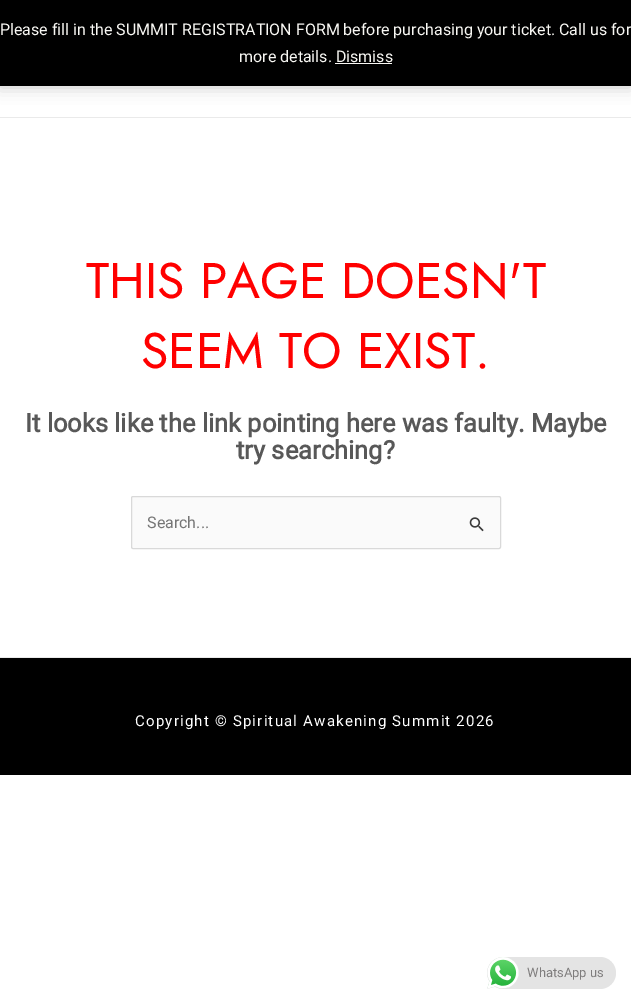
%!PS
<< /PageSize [631 1004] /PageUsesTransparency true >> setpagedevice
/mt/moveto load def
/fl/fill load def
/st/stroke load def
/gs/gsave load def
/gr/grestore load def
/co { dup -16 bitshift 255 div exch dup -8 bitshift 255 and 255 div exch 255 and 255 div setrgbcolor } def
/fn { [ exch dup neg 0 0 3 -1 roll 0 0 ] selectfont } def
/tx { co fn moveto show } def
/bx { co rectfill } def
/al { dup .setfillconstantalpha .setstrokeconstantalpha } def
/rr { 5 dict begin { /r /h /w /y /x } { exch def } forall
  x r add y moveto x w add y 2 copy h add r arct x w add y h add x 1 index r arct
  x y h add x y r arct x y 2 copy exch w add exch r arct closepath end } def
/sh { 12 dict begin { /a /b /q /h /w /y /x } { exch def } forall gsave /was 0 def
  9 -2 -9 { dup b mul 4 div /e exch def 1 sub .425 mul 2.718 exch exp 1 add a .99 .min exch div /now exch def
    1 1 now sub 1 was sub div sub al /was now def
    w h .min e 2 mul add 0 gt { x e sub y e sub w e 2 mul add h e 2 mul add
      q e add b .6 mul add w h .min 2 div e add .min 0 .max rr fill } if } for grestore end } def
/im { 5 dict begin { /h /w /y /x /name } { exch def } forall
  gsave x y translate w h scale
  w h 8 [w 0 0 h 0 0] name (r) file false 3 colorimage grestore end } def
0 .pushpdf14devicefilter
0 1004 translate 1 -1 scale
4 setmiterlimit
0 0 631 1004 16#FFFFFF bx
16#000000 co
0 1 631 86 0 8 .2 sh
0 0 631 86 16#000000 bx
335 63 57 1 16#F8F7F3 bx
0 117 631 1 16#EAEAEA bx
16#FAFAFA co
131.5 496.5 369 52 1.5 rr gs fl gr
16#D9D9D9 co
st
(media/1.raw) 469 517 15 15 im
0 658 631 117 16#000000 bx
0 657 631 1 16#EAEAEA bx
16#E4E4E4 co
487 957 129 32 16 rr fl
(media/2.raw) 487 957 32 32 im
(Please fill in the SUMMIT REGISTRATION FORM before purchasing your ticket. Call us for) 0 35 /Roboto-Regular 16 16#F8F7F3 tx
(more details. Dismiss) 239 62 /Roboto-Regular 16 16#F8F7F3 tx
(THIS PAGE DOESN'T) 86 298 /Jost-Regular 50 16#FF0000 tx
(SEEM TO EXIST.) 141 368 /Jost-Regular 50 16#FF0000 tx
(It looks like the link pointing here was faulty. Maybe) 25 432 /Roboto-Bold 25.5 16#585858 tx
(try searching?) 236 459 /Roboto-Bold 25.5 16#585858 tx
(Search...) 147 528 /Roboto-Regular 16 16#757575 tx
/Roboto-Regular 15 fn
16#FFFFFF co
135 726 mt 1.2 0 (Copyright © Spiritual Awakening Summit 2026) ashow
(WhatsApp us) 527 977 /Roboto-Regular 13 16#7F7D7D tx
.poppdf14devicefilter showpage
